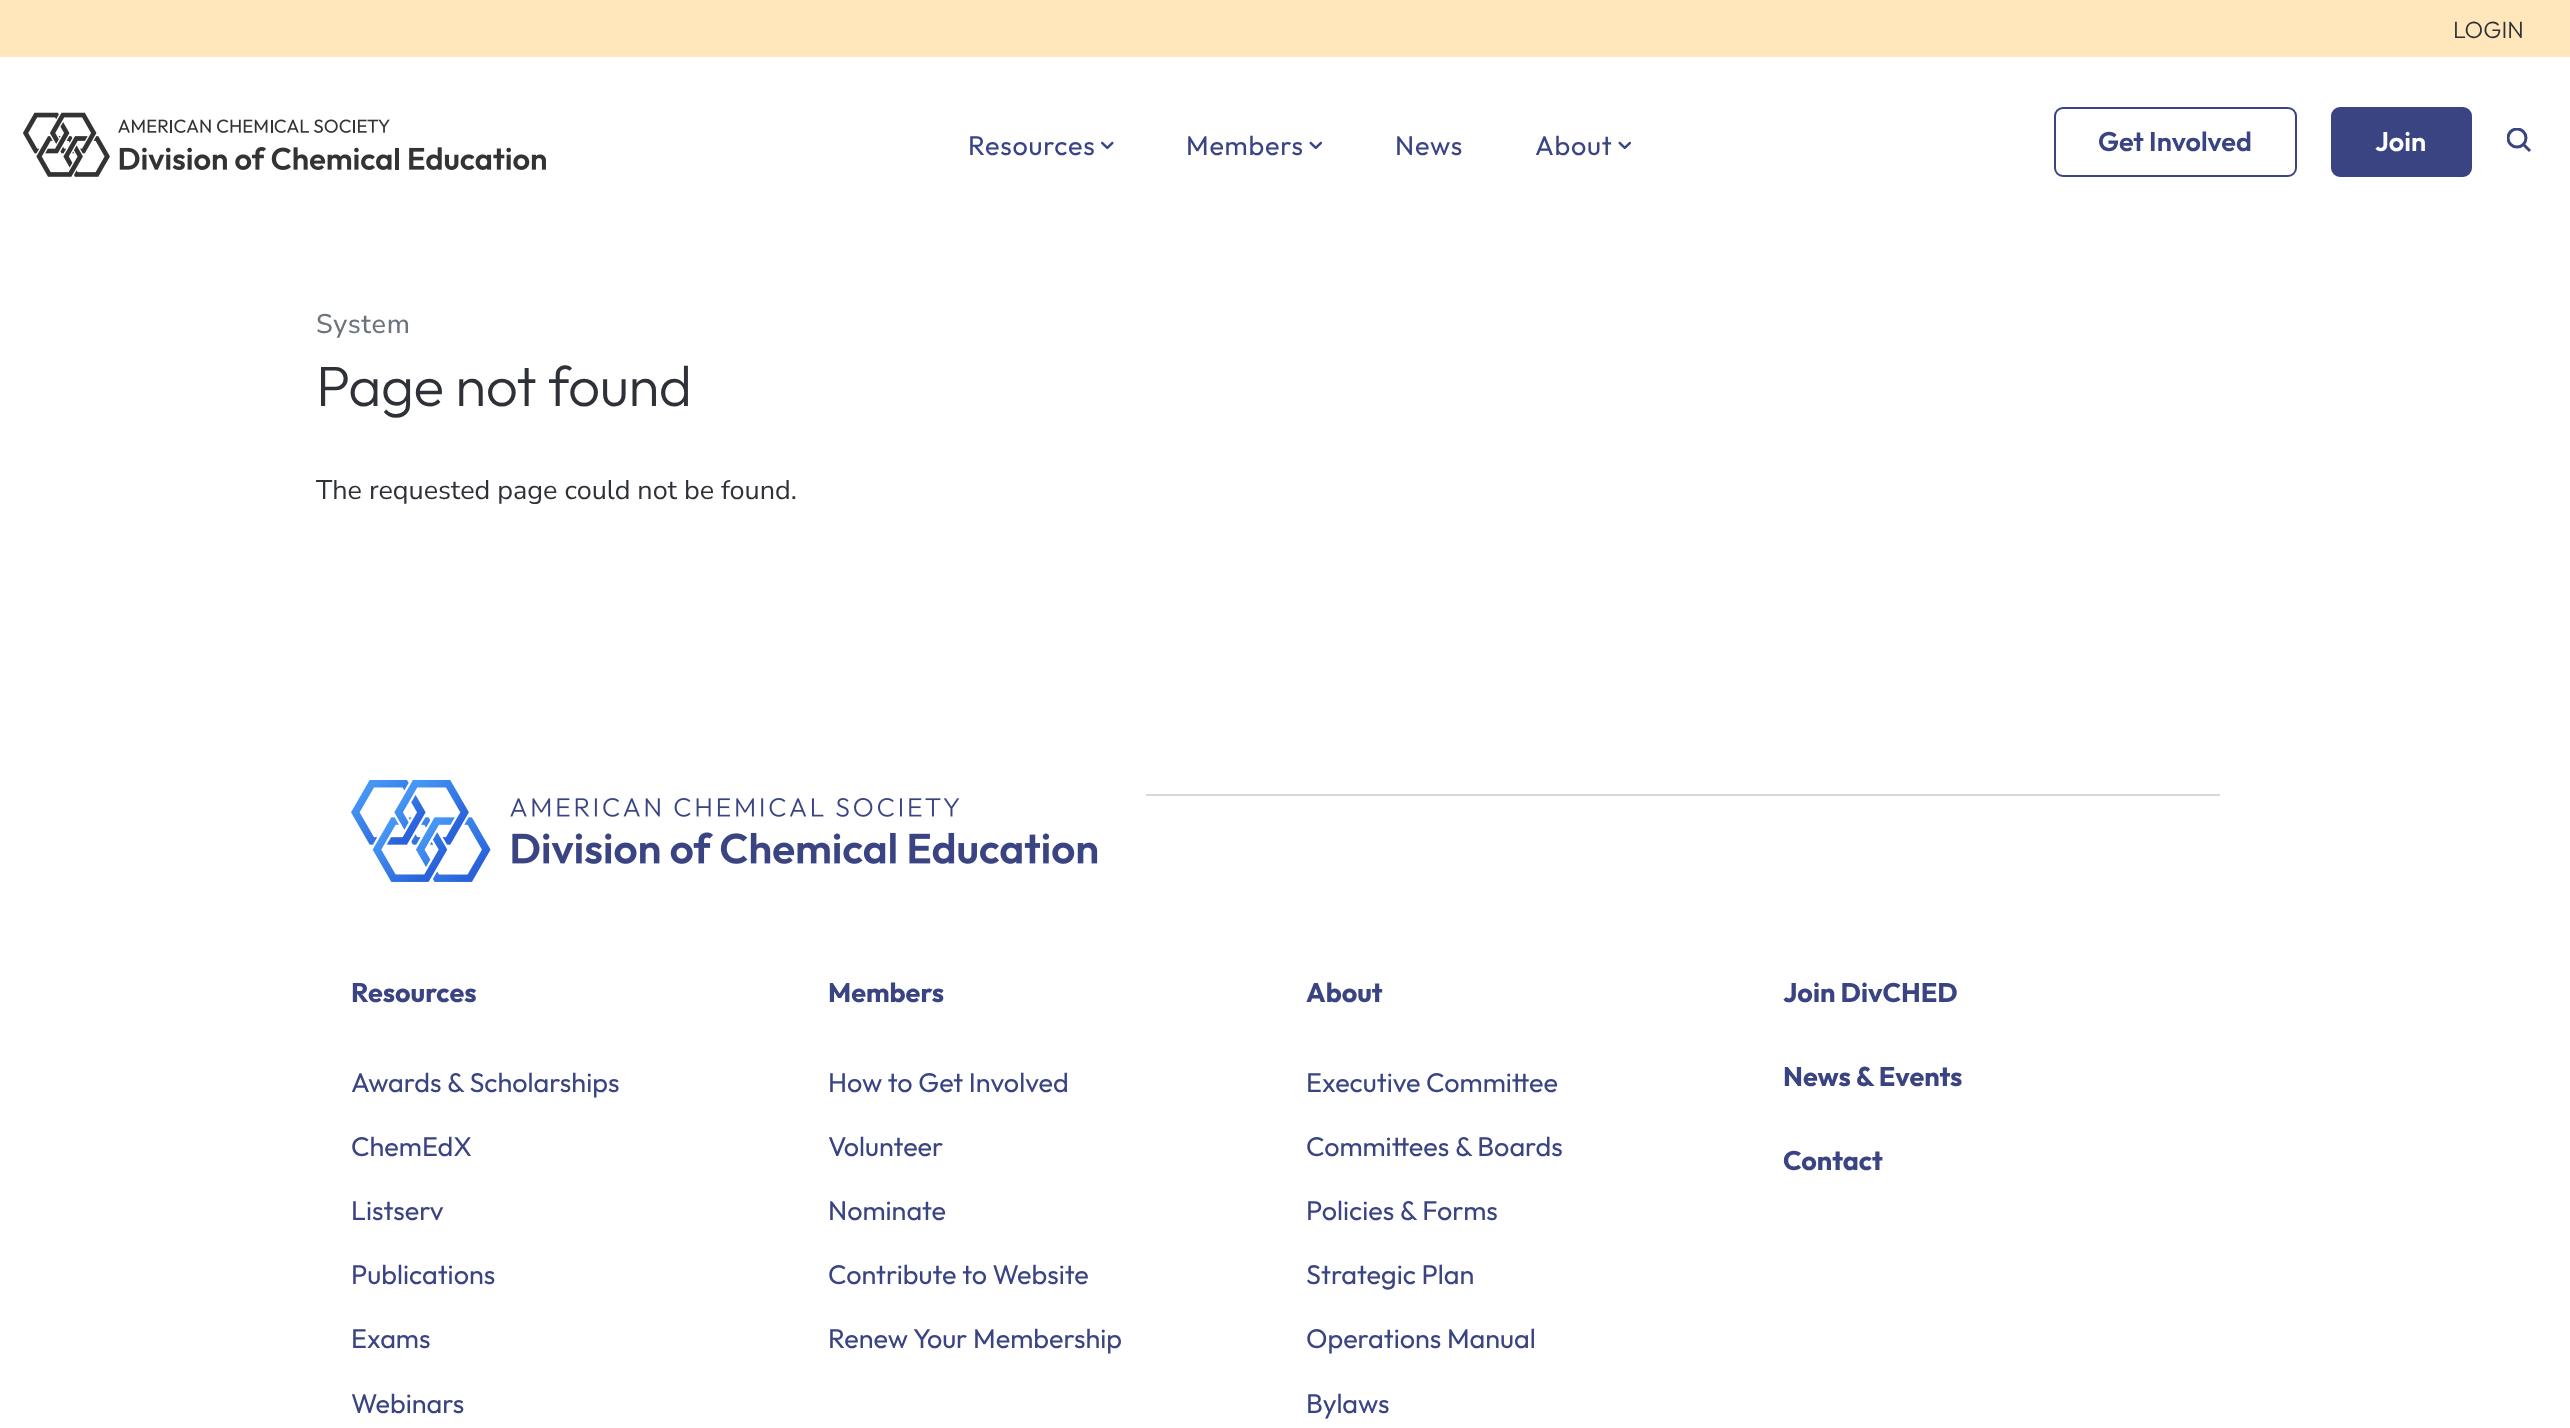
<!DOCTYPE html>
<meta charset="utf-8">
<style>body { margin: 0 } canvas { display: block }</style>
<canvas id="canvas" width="2570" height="1428"></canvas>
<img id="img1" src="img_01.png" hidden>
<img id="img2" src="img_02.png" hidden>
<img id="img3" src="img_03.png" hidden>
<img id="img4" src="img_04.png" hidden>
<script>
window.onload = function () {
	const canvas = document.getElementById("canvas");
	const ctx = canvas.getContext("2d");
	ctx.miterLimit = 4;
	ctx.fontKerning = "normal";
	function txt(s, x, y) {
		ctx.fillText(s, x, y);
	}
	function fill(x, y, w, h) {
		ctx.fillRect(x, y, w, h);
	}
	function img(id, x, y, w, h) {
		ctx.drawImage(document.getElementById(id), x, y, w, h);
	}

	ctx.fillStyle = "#FFFFFF";
	fill(0, 0, 2570, 1428);
	ctx.fillStyle = "#FFE6BB";
	fill(0, 0, 2570, 57);
	img("img1", 23, 112, 523, 65);
	img("img2", 1101, 141, 13, 9);
	img("img3", 1309, 141, 13, 9);
	img("img3", 1618, 141, 13, 9);
	ctx.beginPath();
	ctx.roundRect(2055, 108, 241, 68, 8);
	ctx.strokeStyle = "#3A4483";
	ctx.lineWidth = 2;
	ctx.stroke();
	ctx.fillStyle = "#3A4483";
	ctx.beginPath();
	ctx.roundRect(2332, 108, 139, 68, 8);
	ctx.fill();
	ctx.stroke();
	ctx.beginPath();
	ctx.moveTo(2530, 151);
	ctx.lineTo(2522.5, 143.5);
	ctx.lineWidth = 3;
	ctx.stroke();
	ctx.save();
	ctx.beginPath();
	ctx.rect(2507, 128, 24, 24);
	ctx.clip();
	ctx.beginPath();
	ctx.arc(2517, 138, 9, 0, Math.PI * 2);
	ctx.stroke();
	ctx.restore();
	img("img4", 351, 780, 747, 102);
	ctx.fillStyle = "#D5D7DD";
	fill(1146, 794, 1074, 2);
	ctx.font = "300 23.5px Outfit";
	ctx.fillStyle = "#2E3138";
	txt("LOGIN", 2453, 38);
	ctx.letterSpacing = "0.75px";
	ctx.font = "27px Outfit";
	ctx.fillStyle = "#3A4483";
	txt("Resources", 968, 155);
	txt("Members", 1186, 155);
	txt("News", 1395, 155);
	txt("About", 1535, 155);
	ctx.letterSpacing = "0px";
	ctx.font = "600 27px Outfit";
	txt("Get Involved", 2098, 151);
	ctx.fillStyle = "#FFFFFF";
	txt("Join", 2375, 151);
	ctx.letterSpacing = "0.75px";
	ctx.font = "500 27px Nunito Sans";
	ctx.fillStyle = "#6C757D";
	txt("System", 316, 333);
	ctx.letterSpacing = "-0.5px";
	ctx.font = "300 56.75px Outfit";
	ctx.fillStyle = "#2E3138";
	txt("Page not found", 316, 406);
	ctx.letterSpacing = "0px";
	ctx.font = "27px Nunito Sans";
	txt("The requested page could not be found.", 316, 499);
	ctx.font = "bold 27px Outfit";
	ctx.fillStyle = "#3A4483";
	txt("Resources", 351, 1002);
	ctx.font = "27px Outfit";
	txt("Awards & Scholarships", 351, 1092);
	txt("ChemEdX", 351, 1156);
	txt("Listserv", 351, 1220);
	txt("Publications", 351, 1284);
	txt("Exams", 351, 1348);
	txt("Webinars", 351, 1413);
	ctx.font = "bold 27px Outfit";
	txt("Members", 828, 1002);
	ctx.font = "27px Outfit";
	txt("How to Get Involved", 828, 1092);
	txt("Volunteer", 828, 1156);
	txt("Nominate", 828, 1220);
	txt("Contribute to Website", 828, 1284);
	txt("Renew Your Membership", 828, 1348);
	ctx.font = "bold 27px Outfit";
	txt("About", 1306, 1002);
	ctx.font = "27px Outfit";
	txt("Executive Committee", 1306, 1092);
	txt("Committees & Boards", 1306, 1156);
	txt("Policies & Forms", 1306, 1220);
	txt("Strategic Plan", 1306, 1284);
	txt("Operations Manual", 1306, 1348);
	txt("Bylaws", 1306, 1413);
	ctx.font = "bold 27px Outfit";
	txt("Join DivCHED", 1783, 1002);
	txt("News & Events", 1783, 1086);
	txt("Contact", 1783, 1170);
};
</script>
